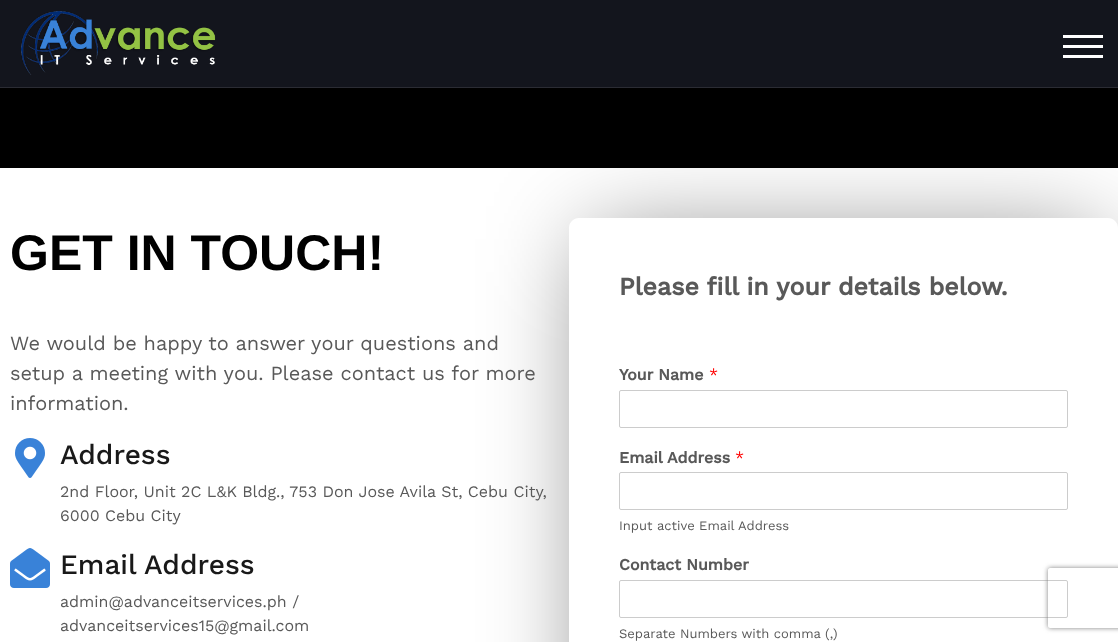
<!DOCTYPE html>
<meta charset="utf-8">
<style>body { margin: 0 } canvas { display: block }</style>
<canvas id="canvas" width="1118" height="642"></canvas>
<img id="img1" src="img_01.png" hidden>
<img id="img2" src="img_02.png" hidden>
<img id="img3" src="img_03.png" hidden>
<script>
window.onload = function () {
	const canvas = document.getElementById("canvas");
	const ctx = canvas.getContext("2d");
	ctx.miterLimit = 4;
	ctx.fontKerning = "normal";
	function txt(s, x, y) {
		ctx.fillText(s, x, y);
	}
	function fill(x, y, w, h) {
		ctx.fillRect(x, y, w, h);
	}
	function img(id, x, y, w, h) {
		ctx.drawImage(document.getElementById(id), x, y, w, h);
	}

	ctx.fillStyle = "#FFFFFF";
	fill(0, 0, 1118, 642);
	ctx.fillStyle = "#13151D";
	fill(0, 0, 1118, 87);
	ctx.fillStyle = "#2B2C34";
	fill(0, 87, 1118, 1);
	img("img1", 21, 11, 195, 64);
	ctx.fillStyle = "#FFFFFF";
	fill(1063, 45, 40, 3);
	fill(1063, 35, 40, 3);
	fill(1063, 55, 40, 3);
	ctx.fillStyle = "#000000";
	fill(0, 88, 1118, 80);
	img("img2", 15, 438, 30, 40);
	img("img3", 10, 548, 40, 40);
	ctx.save();
	ctx.beginPath();
	ctx.moveTo(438, 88);
	ctx.lineTo(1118, 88);
	ctx.lineTo(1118, 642);
	ctx.lineTo(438, 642);
	ctx.closePath();
	ctx.moveTo(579, 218);
	ctx.lineTo(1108, 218);
	ctx.bezierCurveTo(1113.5, 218, 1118, 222.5, 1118, 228);
	ctx.lineTo(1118, 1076);
	ctx.bezierCurveTo(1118, 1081.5, 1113.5, 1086, 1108, 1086);
	ctx.lineTo(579, 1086);
	ctx.bezierCurveTo(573.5, 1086, 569, 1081.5, 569, 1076);
	ctx.lineTo(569, 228);
	ctx.bezierCurveTo(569, 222.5, 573.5, 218, 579, 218);
	ctx.closePath();
	ctx.clip("evenodd");
	ctx.fillStyle = "rgba(0, 0, 0, 0.5)";
	ctx.filter = "blur(50px)";
	ctx.beginPath();
	ctx.rect(589, 239, 509, 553);
	ctx.fill();
	ctx.filter = "none";
	ctx.restore();
	ctx.beginPath();
	ctx.roundRect(619.5, 390.5, 448, 37, 1.5);
	ctx.strokeStyle = "#CCCCCC";
	ctx.stroke();
	ctx.beginPath();
	ctx.roundRect(619.5, 472.5, 448, 37, 1.5);
	ctx.stroke();
	ctx.beginPath();
	ctx.roundRect(619.5, 580.5, 448, 37, 1.5);
	ctx.stroke();
	ctx.save();
	ctx.beginPath();
	ctx.moveTo(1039, 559);
	ctx.lineTo(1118, 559);
	ctx.lineTo(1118, 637);
	ctx.lineTo(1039, 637);
	ctx.closePath();
	ctx.moveTo(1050, 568);
	ctx.lineTo(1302, 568);
	ctx.bezierCurveTo(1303, 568, 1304, 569, 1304, 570);
	ctx.lineTo(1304, 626);
	ctx.bezierCurveTo(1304, 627, 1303, 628, 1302, 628);
	ctx.lineTo(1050, 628);
	ctx.bezierCurveTo(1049, 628, 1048, 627, 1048, 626);
	ctx.lineTo(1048, 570);
	ctx.bezierCurveTo(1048, 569, 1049, 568, 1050, 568);
	ctx.closePath();
	ctx.clip("evenodd");
	ctx.fillStyle = "#808080";
	ctx.filter = "blur(2.5px)";
	ctx.beginPath();
	ctx.roundRect(1048, 568, 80, 60, 2);
	ctx.fill();
	ctx.filter = "none";
	ctx.restore();
	ctx.font = "bold 50px Liberation Sans";
	txt("GET IN TOUCH!", 10, 270);
	ctx.font = "20px Work Sans";
	ctx.fillStyle = "#595959";
	txt("We would be happy to answer your questions and", 10, 350);
	txt("setup a meeting with you. Please contact us for more", 10, 380);
	txt("information.", 10, 410);
	ctx.font = "500 28px Work Sans";
	ctx.fillStyle = "#191919";
	txt("Address", 60, 464);
	ctx.font = "16px Work Sans";
	ctx.fillStyle = "#595959";
	txt("2nd Floor, Unit 2C L&K Bldg., 753 Don Jose Avila St, Cebu City,", 60, 497);
	txt("6000 Cebu City", 60, 521);
	ctx.font = "500 28px Work Sans";
	ctx.fillStyle = "#191919";
	txt("Email Address", 60, 574);
	ctx.font = "16px Work Sans";
	ctx.fillStyle = "#595959";
	txt("admin@advanceitservices.ph /", 60, 607);
	txt("advanceitservices15@gmail.com", 60, 631);
	ctx.font = "bold 25px Work Sans";
	txt("Please fill in your details below.", 619, 295);
	ctx.font = "bold 16px Work Sans";
	txt("Your Name", 619, 380);
	ctx.font = "16px Work Sans";
	ctx.fillStyle = "#FF0000";
	txt("*", 709, 380);
	ctx.font = "bold 16px Work Sans";
	ctx.fillStyle = "#595959";
	txt("Email Address", 619, 463);
	ctx.font = "16px Work Sans";
	ctx.fillStyle = "#FF0000";
	txt("*", 735, 463);
	ctx.font = "13px Work Sans";
	ctx.fillStyle = "#595959";
	txt("Input active Email Address", 619, 530);
	ctx.font = "bold 16px Work Sans";
	txt("Contact Number", 619, 570);
	ctx.font = "13px Work Sans";
	txt("Separate Numbers with comma (,)", 619, 638);
};
</script>
